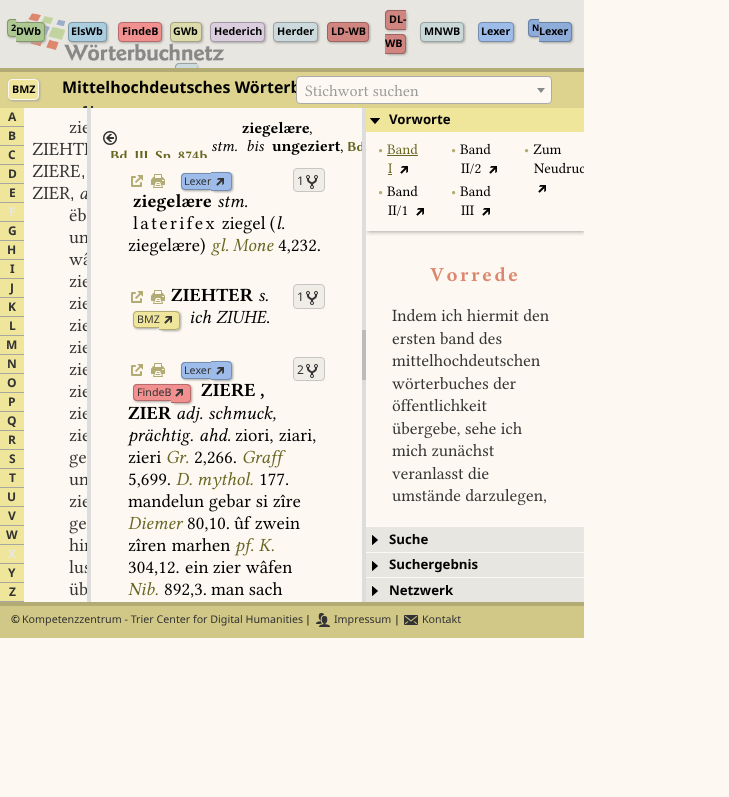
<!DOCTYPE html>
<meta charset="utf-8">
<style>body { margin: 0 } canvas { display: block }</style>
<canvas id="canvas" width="729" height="797"></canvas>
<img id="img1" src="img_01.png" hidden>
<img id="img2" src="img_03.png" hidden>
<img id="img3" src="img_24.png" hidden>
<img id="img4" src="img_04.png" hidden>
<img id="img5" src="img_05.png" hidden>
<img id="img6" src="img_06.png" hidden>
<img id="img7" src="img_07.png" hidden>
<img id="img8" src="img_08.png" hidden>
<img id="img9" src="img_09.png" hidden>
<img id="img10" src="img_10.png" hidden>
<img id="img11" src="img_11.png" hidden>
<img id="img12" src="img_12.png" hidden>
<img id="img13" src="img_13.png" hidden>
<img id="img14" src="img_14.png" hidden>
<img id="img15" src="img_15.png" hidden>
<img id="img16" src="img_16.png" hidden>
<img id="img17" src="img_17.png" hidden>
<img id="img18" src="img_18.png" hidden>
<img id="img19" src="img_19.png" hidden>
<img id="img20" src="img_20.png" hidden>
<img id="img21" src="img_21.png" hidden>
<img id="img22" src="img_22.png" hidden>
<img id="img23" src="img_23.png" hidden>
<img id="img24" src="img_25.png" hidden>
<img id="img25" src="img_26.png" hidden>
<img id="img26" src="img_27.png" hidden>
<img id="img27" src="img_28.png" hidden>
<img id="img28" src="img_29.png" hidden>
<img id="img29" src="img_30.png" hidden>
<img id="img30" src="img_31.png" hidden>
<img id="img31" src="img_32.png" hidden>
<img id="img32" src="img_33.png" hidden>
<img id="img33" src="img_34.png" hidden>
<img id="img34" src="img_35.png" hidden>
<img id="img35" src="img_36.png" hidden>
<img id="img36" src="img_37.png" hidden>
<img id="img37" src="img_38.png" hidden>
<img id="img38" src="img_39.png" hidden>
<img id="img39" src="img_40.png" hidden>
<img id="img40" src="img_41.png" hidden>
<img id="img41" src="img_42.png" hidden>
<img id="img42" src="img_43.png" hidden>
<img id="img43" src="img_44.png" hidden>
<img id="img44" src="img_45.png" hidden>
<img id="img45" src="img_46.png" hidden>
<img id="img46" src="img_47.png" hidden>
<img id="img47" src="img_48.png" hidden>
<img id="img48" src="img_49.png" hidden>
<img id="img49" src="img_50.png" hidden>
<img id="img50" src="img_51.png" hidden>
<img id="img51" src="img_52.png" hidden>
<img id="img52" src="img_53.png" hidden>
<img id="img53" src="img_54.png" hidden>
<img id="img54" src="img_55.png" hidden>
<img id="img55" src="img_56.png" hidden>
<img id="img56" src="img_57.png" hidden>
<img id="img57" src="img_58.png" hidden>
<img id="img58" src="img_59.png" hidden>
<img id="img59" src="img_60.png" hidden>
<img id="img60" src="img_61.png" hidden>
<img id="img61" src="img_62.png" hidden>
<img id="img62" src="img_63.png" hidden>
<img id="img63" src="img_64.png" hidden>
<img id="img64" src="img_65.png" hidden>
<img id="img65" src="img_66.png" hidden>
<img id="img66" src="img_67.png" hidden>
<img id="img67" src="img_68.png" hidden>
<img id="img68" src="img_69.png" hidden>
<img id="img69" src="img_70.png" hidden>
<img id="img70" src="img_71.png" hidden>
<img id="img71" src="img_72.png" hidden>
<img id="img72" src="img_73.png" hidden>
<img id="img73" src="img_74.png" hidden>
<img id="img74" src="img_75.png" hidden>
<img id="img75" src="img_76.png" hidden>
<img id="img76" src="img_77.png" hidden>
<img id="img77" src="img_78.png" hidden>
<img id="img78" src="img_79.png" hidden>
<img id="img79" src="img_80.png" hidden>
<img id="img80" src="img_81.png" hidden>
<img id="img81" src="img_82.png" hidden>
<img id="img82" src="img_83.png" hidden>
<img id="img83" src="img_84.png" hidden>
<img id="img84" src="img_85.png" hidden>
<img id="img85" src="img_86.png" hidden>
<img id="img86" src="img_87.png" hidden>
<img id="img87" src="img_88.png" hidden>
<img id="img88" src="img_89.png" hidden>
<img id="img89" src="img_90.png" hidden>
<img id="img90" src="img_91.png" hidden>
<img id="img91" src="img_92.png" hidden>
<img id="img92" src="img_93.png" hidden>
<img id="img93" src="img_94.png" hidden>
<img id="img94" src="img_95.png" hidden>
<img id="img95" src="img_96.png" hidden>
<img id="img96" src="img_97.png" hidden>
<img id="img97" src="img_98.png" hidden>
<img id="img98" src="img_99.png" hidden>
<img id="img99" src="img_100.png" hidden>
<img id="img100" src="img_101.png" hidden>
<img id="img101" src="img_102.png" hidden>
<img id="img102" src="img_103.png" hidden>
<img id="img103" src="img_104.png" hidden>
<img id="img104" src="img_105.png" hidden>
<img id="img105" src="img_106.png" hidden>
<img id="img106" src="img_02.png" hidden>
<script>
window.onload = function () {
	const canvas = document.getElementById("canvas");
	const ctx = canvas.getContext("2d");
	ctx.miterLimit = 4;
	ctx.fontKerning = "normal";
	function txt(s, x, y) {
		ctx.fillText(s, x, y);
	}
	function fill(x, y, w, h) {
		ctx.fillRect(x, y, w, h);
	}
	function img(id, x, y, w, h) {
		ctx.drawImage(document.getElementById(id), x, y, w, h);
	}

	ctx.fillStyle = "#FDF9F2";
	fill(0, 0, 729, 797);
	ctx.fillStyle = "#B3AB74";
	fill(0, 68, 584, 4);
	ctx.fillStyle = "#E8E6E1";
	fill(0, 0, 584, 68);
	img("img1", 25, 13, 199, 48);
	ctx.fillStyle = "#A8A6A1";
	ctx.filter = "blur(1px)";
	ctx.beginPath();
	ctx.roundRect(8, 20, 9, 18, 4);
	ctx.fill();
	ctx.filter = "none";
	ctx.fillStyle = "#AEC893";
	ctx.beginPath();
	ctx.roundRect(7, 19, 9, 18, [4, 0, 0, 4]);
	ctx.fill();
	ctx.fillStyle = "#82966E";
	ctx.beginPath();
	ctx.moveTo(11, 19);
	ctx.lineTo(16, 19);
	ctx.lineTo(16, 37);
	ctx.bezierCurveTo(7.5, 37, 7, 37, 7, 28);
	ctx.bezierCurveTo(7, 25, 6, 19, 11, 19);
	ctx.closePath();
	ctx.moveTo(11, 20);
	ctx.lineTo(16, 20);
	ctx.lineTo(16, 36);
	ctx.bezierCurveTo(8, 36, 8, 36.5, 8, 28);
	ctx.bezierCurveTo(8, 25.5, 7, 20, 11, 20);
	ctx.closePath();
	ctx.fill("evenodd");
	ctx.fillStyle = "#A8A6A1";
	ctx.filter = "blur(1px)";
	ctx.beginPath();
	ctx.roundRect(17, 23, 29, 20, 4);
	ctx.fill();
	ctx.filter = "none";
	ctx.fillStyle = "#AEC893";
	ctx.beginPath();
	ctx.roundRect(16, 22, 29, 20, [0, 4, 4, 0]);
	ctx.fill();
	ctx.fillStyle = "#82966E";
	ctx.beginPath();
	ctx.moveTo(16, 22);
	ctx.lineTo(41, 22);
	ctx.bezierCurveTo(43, 22, 45, 24, 45, 26);
	ctx.lineTo(45, 38);
	ctx.bezierCurveTo(45, 40, 43, 42, 41, 42);
	ctx.lineTo(16, 42);
	ctx.closePath();
	ctx.moveTo(16, 23);
	ctx.lineTo(37, 23);
	ctx.bezierCurveTo(45.5, 23, 44, 24, 44, 32);
	ctx.bezierCurveTo(44, 40, 45.5, 41, 37, 41);
	ctx.lineTo(16, 41);
	ctx.closePath();
	ctx.fill("evenodd");
	ctx.fillStyle = "#A8A6A1";
	ctx.filter = "blur(1px)";
	ctx.beginPath();
	ctx.roundRect(69, 23, 39, 20, 4);
	ctx.fill();
	ctx.filter = "none";
	ctx.fillStyle = "#AACDDF";
	ctx.beginPath();
	ctx.roundRect(68.5, 22.5, 38, 19, 3.5);
	ctx.fill();
	ctx.strokeStyle = "#7F99A7";
	ctx.stroke();
	ctx.fillStyle = "#A8A6A1";
	ctx.filter = "blur(1px)";
	ctx.beginPath();
	ctx.roundRect(119, 23, 44, 20, 4);
	ctx.fill();
	ctx.filter = "none";
	ctx.fillStyle = "#F28F8F";
	ctx.beginPath();
	ctx.roundRect(118.5, 22.5, 43, 19, 3.5);
	ctx.fill();
	ctx.strokeStyle = "#B56B6B";
	ctx.stroke();
	ctx.fillStyle = "#A8A6A1";
	ctx.filter = "blur(1px)";
	ctx.beginPath();
	ctx.roundRect(171, 23, 32, 20, 4);
	ctx.fill();
	ctx.filter = "none";
	ctx.fillStyle = "#DBDBAC";
	ctx.beginPath();
	ctx.roundRect(170.5, 22.5, 31, 19, 3.5);
	ctx.fill();
	ctx.strokeStyle = "#A4A481";
	ctx.stroke();
	ctx.fillStyle = "#A8A6A1";
	ctx.filter = "blur(1px)";
	ctx.beginPath();
	ctx.roundRect(211, 23, 55, 20, 4);
	ctx.fill();
	ctx.filter = "none";
	ctx.fillStyle = "#DACDDE";
	ctx.beginPath();
	ctx.roundRect(210.5, 22.5, 54, 19, 3.5);
	ctx.fill();
	ctx.strokeStyle = "#A399A6";
	ctx.stroke();
	ctx.fillStyle = "#A8A6A1";
	ctx.filter = "blur(1px)";
	ctx.beginPath();
	ctx.roundRect(274, 23, 45, 20, 4);
	ctx.fill();
	ctx.filter = "none";
	ctx.fillStyle = "#CCDADE";
	ctx.beginPath();
	ctx.roundRect(273.5, 22.5, 44, 19, 3.5);
	ctx.fill();
	ctx.strokeStyle = "#99A3A6";
	ctx.stroke();
	ctx.fillStyle = "#A8A6A1";
	ctx.filter = "blur(1px)";
	ctx.beginPath();
	ctx.roundRect(328, 23, 42, 20, 4);
	ctx.fill();
	ctx.filter = "none";
	ctx.fillStyle = "#D08581";
	ctx.beginPath();
	ctx.roundRect(327.5, 22.5, 41, 19, 3.5);
	ctx.fill();
	ctx.strokeStyle = "#9C6360";
	ctx.stroke();
	ctx.fillStyle = "#A8A6A1";
	ctx.filter = "blur(1px)";
	ctx.beginPath();
	ctx.roundRect(386, 11, 21, 20, 4);
	ctx.fill();
	ctx.filter = "none";
	ctx.fillStyle = "#D08581";
	ctx.beginPath();
	ctx.roundRect(385, 10, 21, 20, [4, 0, 0, 4]);
	ctx.fill();
	ctx.fillStyle = "#9C6360";
	ctx.beginPath();
	ctx.moveTo(389, 10);
	ctx.lineTo(406, 10);
	ctx.lineTo(406, 30);
	ctx.lineTo(389, 30);
	ctx.bezierCurveTo(387, 30, 385, 28, 385, 26);
	ctx.lineTo(385, 14);
	ctx.bezierCurveTo(385, 12, 387, 10, 389, 10);
	ctx.closePath();
	ctx.moveTo(389, 11);
	ctx.lineTo(406, 11);
	ctx.lineTo(406, 29);
	ctx.lineTo(389, 29);
	ctx.bezierCurveTo(387.5, 29, 386, 27.5, 386, 26);
	ctx.lineTo(386, 14);
	ctx.bezierCurveTo(386, 12.5, 387.5, 11, 389, 11);
	ctx.closePath();
	ctx.fill("evenodd");
	ctx.fillStyle = "#A8A6A1";
	ctx.filter = "blur(1px)";
	ctx.beginPath();
	ctx.roundRect(386, 35, 21, 20, 4);
	ctx.fill();
	ctx.filter = "none";
	ctx.fillStyle = "#D08581";
	ctx.beginPath();
	ctx.roundRect(385, 34, 21, 20, [0, 4, 4, 0]);
	ctx.fill();
	ctx.fillStyle = "#9C6360";
	ctx.beginPath();
	ctx.moveTo(385, 34);
	ctx.lineTo(402, 34);
	ctx.bezierCurveTo(404, 34, 406, 36, 406, 38);
	ctx.lineTo(406, 50);
	ctx.bezierCurveTo(406, 52, 404, 54, 402, 54);
	ctx.lineTo(385, 54);
	ctx.closePath();
	ctx.moveTo(385, 35);
	ctx.lineTo(402, 35);
	ctx.bezierCurveTo(403.5, 35, 405, 36.5, 405, 38);
	ctx.lineTo(405, 50);
	ctx.bezierCurveTo(405, 51.5, 403.5, 53, 402, 53);
	ctx.lineTo(385, 53);
	ctx.closePath();
	ctx.fill("evenodd");
	ctx.fillStyle = "#A8A6A1";
	ctx.filter = "blur(1px)";
	ctx.beginPath();
	ctx.roundRect(421, 23, 44, 20, 4);
	ctx.fill();
	ctx.filter = "none";
	ctx.fillStyle = "#CAD8D8";
	ctx.beginPath();
	ctx.roundRect(420.5, 22.5, 43, 19, 3.5);
	ctx.fill();
	ctx.strokeStyle = "#97A2A2";
	ctx.stroke();
	ctx.fillStyle = "#A8A6A1";
	ctx.filter = "blur(1px)";
	ctx.beginPath();
	ctx.roundRect(479, 23, 36, 20, 4);
	ctx.fill();
	ctx.filter = "none";
	ctx.fillStyle = "#9DBCEA";
	ctx.beginPath();
	ctx.roundRect(478.5, 22.5, 35, 19, 3.5);
	ctx.fill();
	ctx.strokeStyle = "#758DAF";
	ctx.stroke();
	ctx.fillStyle = "#A8A6A1";
	ctx.filter = "blur(1px)";
	ctx.beginPath();
	ctx.roundRect(529, 20, 11, 18, 4);
	ctx.fill();
	ctx.filter = "none";
	ctx.fillStyle = "#8DACDA";
	ctx.beginPath();
	ctx.roundRect(528, 19, 11, 18, [4, 0, 0, 4]);
	ctx.fill();
	ctx.fillStyle = "#6981A3";
	ctx.beginPath();
	ctx.moveTo(532, 19);
	ctx.lineTo(539, 19);
	ctx.lineTo(539, 37);
	ctx.lineTo(532, 37);
	ctx.bezierCurveTo(530, 37, 528, 35, 528, 33);
	ctx.lineTo(528, 23);
	ctx.bezierCurveTo(528, 21, 530, 19, 532, 19);
	ctx.closePath();
	ctx.moveTo(532, 20);
	ctx.lineTo(539, 20);
	ctx.lineTo(539, 36);
	ctx.lineTo(532, 36);
	ctx.bezierCurveTo(530.5, 36, 529, 34.5, 529, 33);
	ctx.lineTo(529, 23);
	ctx.bezierCurveTo(529, 21.5, 530.5, 20, 532, 20);
	ctx.closePath();
	ctx.fill("evenodd");
	ctx.fillStyle = "#A8A6A1";
	ctx.filter = "blur(1px)";
	ctx.beginPath();
	ctx.roundRect(540, 23, 33, 20, 4);
	ctx.fill();
	ctx.filter = "none";
	ctx.fillStyle = "#8DACDA";
	ctx.beginPath();
	ctx.roundRect(539, 22, 33, 20, [0, 4, 4, 0]);
	ctx.fill();
	ctx.fillStyle = "#6981A3";
	ctx.beginPath();
	ctx.moveTo(539, 22);
	ctx.lineTo(568, 22);
	ctx.bezierCurveTo(570, 22, 572, 24, 572, 26);
	ctx.lineTo(572, 38);
	ctx.bezierCurveTo(572, 40, 570, 42, 568, 42);
	ctx.lineTo(539, 42);
	ctx.closePath();
	ctx.moveTo(539, 23);
	ctx.lineTo(568, 23);
	ctx.bezierCurveTo(569.5, 23, 571, 24.5, 571, 26);
	ctx.lineTo(571, 38);
	ctx.bezierCurveTo(571, 39.5, 569.5, 41, 568, 41);
	ctx.lineTo(539, 41);
	ctx.closePath();
	ctx.fill("evenodd");
	ctx.save();
	ctx.beginPath();
	ctx.rect(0, 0, 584, 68);
	ctx.clip();
	ctx.fillStyle = "#A8A6A1";
	ctx.filter = "blur(1px)";
	ctx.beginPath();
	ctx.roundRect(176, 64, 22, 20, 4);
	ctx.fill();
	ctx.filter = "none";
	ctx.restore();
	ctx.fillStyle = "#CDDADE";
	ctx.beginPath();
	ctx.roundRect(175, 63, 22, 5, [4, 0, 0, 0]);
	ctx.fill();
	ctx.save();
	ctx.beginPath();
	ctx.rect(0, 0, 584, 68);
	ctx.clip();
	ctx.fillStyle = "#99A3A6";
	ctx.beginPath();
	ctx.moveTo(179, 63);
	ctx.lineTo(197, 63);
	ctx.lineTo(197, 83);
	ctx.lineTo(179, 83);
	ctx.bezierCurveTo(177, 83, 175, 81, 175, 79);
	ctx.lineTo(175, 67);
	ctx.bezierCurveTo(175, 65, 177, 63, 179, 63);
	ctx.closePath();
	ctx.moveTo(179, 64);
	ctx.lineTo(197, 64);
	ctx.lineTo(197, 82);
	ctx.lineTo(179, 82);
	ctx.bezierCurveTo(177.5, 82, 176, 80.5, 176, 79);
	ctx.lineTo(176, 67);
	ctx.bezierCurveTo(176, 65.5, 177.5, 64, 179, 64);
	ctx.closePath();
	ctx.fill("evenodd");
	ctx.restore();
	ctx.fillStyle = "#DDD38F";
	fill(0, 72, 584, 36);
	ctx.fillStyle = "#A8A6A1";
	ctx.filter = "blur(1px)";
	ctx.beginPath();
	ctx.roundRect(9, 80, 31, 21, 4);
	ctx.fill();
	ctx.filter = "none";
	ctx.fillStyle = "#EFE59B";
	ctx.beginPath();
	ctx.roundRect(8.5, 79.5, 30, 20, 3.5);
	ctx.fill();
	ctx.strokeStyle = "#FDF9F2";
	ctx.stroke();
	img("img2", 83, 106, 10, 2);
	ctx.fillStyle = "#DDDDDD";
	fill(87, 108, 4, 494);
	img("img3", 348, 141, 14, 11);
	ctx.fillStyle = "#FFFFFF";
	fill(366, 524, 218, 3);
	ctx.fillStyle = "#FDF9F2";
	ctx.beginPath();
	ctx.roundRect(366, 132, 218, 395, [0, 0, 3, 3]);
	ctx.fill();
	ctx.save();
	ctx.beginPath();
	ctx.moveTo(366, 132);
	ctx.lineTo(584, 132);
	ctx.lineTo(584, 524);
	ctx.bezierCurveTo(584, 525.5, 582.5, 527, 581, 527);
	ctx.lineTo(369, 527);
	ctx.bezierCurveTo(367.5, 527, 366, 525.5, 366, 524);
	ctx.closePath();
	ctx.clip();
	ctx.beginPath();
	ctx.rect(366, 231, 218, 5);
	ctx.clip();
	ctx.fillStyle = "#A8A6A1";
	ctx.filter = "blur(2px)";
	ctx.beginPath();
	ctx.rect(367, 133, 218, 99);
	ctx.fill();
	ctx.filter = "none";
	ctx.restore();
	ctx.fillStyle = "#DDDDDD";
	fill(362, 108, 4, 494);
	ctx.fillStyle = "#BBBBBB";
	fill(362, 330, 4, 50);
	ctx.fillStyle = "#EFE59B";
	fill(0, 108, 24, 493);
	ctx.fillStyle = "#A8A6A1";
	fill(0, 126, 24, 1);
	fill(0, 145, 24, 1);
	fill(0, 164, 24, 1);
	fill(0, 183, 24, 1);
	fill(0, 202, 24, 1);
	fill(0, 221, 24, 1);
	fill(0, 240, 24, 1);
	fill(0, 259, 24, 1);
	fill(0, 278, 24, 1);
	fill(0, 297, 24, 1);
	fill(0, 316, 24, 1);
	fill(0, 335, 24, 1);
	fill(0, 354, 24, 1);
	fill(0, 373, 24, 1);
	fill(0, 392, 24, 1);
	fill(0, 411, 24, 1);
	fill(0, 430, 24, 1);
	fill(0, 449, 24, 1);
	fill(0, 468, 24, 1);
	fill(0, 487, 24, 1);
	fill(0, 506, 24, 1);
	fill(0, 525, 24, 1);
	fill(0, 544, 24, 1);
	fill(0, 563, 24, 1);
	fill(0, 582, 24, 1);
	fill(0, 601, 24, 1);
	img("img4", 69, 121, 18, 13);
	img("img5", 32, 142, 55, 13);
	img("img6", 32, 164, 48, 14);
	img("img7", 32, 186, 39, 14);
	img("img8", 80, 190, 7, 10);
	img("img9", 69, 208, 17, 14);
	img("img10", 69, 234, 18, 10);
	img("img11", 69, 252, 18, 14);
	img("img4", 69, 275, 18, 13);
	img("img4", 69, 297, 18, 13);
	img("img4", 69, 319, 18, 13);
	img("img4", 69, 341, 18, 13);
	img("img4", 69, 363, 18, 13);
	img("img4", 69, 385, 18, 13);
	img("img4", 69, 407, 18, 13);
	img("img4", 69, 429, 18, 13);
	img("img12", 69, 454, 17, 14);
	img("img10", 69, 476, 18, 10);
	img("img4", 69, 495, 18, 13);
	img("img12", 69, 520, 17, 14);
	img("img13", 69, 538, 18, 13);
	img("img14", 69, 560, 18, 14);
	img("img15", 69, 582, 18, 14);
	img("img16", 103, 131, 14, 14);
	img("img17", 111, 150, 96, 8);
	img("img18", 242, 121, 67, 16);
	img("img19", 309, 131, 3, 4);
	img("img20", 212, 142, 25, 10);
	img("img21", 247, 139, 18, 13);
	img("img22", 272, 140, 69, 15);
	img("img19", 340, 149, 3, 4);
	img("img23", 298, 157, 2, 1);
	img("img24", 131, 175, 12, 12);
	img("img25", 151, 174, 14, 14);
	ctx.filter = "blur(1px)";
	ctx.beginPath();
	ctx.roundRect(182, 174, 30, 17, 4);
	ctx.fill();
	ctx.filter = "none";
	ctx.fillStyle = "#9DBCEA";
	ctx.beginPath();
	ctx.roundRect(181, 173, 30, 17, [4, 0, 0, 4]);
	ctx.fill();
	ctx.fillStyle = "#758DAF";
	ctx.beginPath();
	ctx.moveTo(185, 173);
	ctx.lineTo(211, 173);
	ctx.lineTo(211, 190);
	ctx.lineTo(185, 190);
	ctx.bezierCurveTo(183, 190, 181, 188, 181, 186);
	ctx.lineTo(181, 177);
	ctx.bezierCurveTo(181, 175, 183, 173, 185, 173);
	ctx.closePath();
	ctx.moveTo(185, 174);
	ctx.lineTo(211, 174);
	ctx.lineTo(211, 189);
	ctx.lineTo(185, 189);
	ctx.bezierCurveTo(183.5, 189, 182, 187.5, 182, 186);
	ctx.lineTo(182, 177);
	ctx.bezierCurveTo(182, 175.5, 183.5, 174, 185, 174);
	ctx.closePath();
	ctx.fill("evenodd");
	ctx.fillStyle = "#A8A6A1";
	ctx.filter = "blur(1px)";
	ctx.beginPath();
	ctx.roundRect(212, 173, 21, 19, 4);
	ctx.fill();
	ctx.filter = "none";
	ctx.fillStyle = "#9DBCEA";
	ctx.beginPath();
	ctx.roundRect(211, 172, 21, 19, [0, 4, 4, 0]);
	ctx.fill();
	ctx.fillStyle = "#758DAF";
	ctx.beginPath();
	ctx.moveTo(211, 172);
	ctx.lineTo(225, 172);
	ctx.bezierCurveTo(233, 172, 232, 174.5, 232, 181.5);
	ctx.bezierCurveTo(232, 188.5, 233, 191, 225, 191);
	ctx.lineTo(211, 191);
	ctx.closePath();
	ctx.moveTo(211, 173);
	ctx.lineTo(225, 173);
	ctx.bezierCurveTo(232.5, 173, 231, 175, 231, 181.5);
	ctx.bezierCurveTo(231, 188, 232.5, 190, 225, 190);
	ctx.lineTo(211, 190);
	ctx.closePath();
	ctx.fill("evenodd");
	img("img26", 216, 178, 8, 8);
	ctx.fillStyle = "#F0EDE6";
	ctx.beginPath();
	ctx.roundRect(293.5, 168.5, 31, 23, 3.5);
	ctx.fill();
	ctx.strokeStyle = "#C8C6C1";
	ctx.stroke();
	img("img27", 306, 175, 12, 14);
	img("img28", 133, 194, 79, 18);
	img("img29", 218, 196, 30, 12);
	img("img30", 133, 216, 82, 14);
	img("img31", 222, 216, 44, 18);
	img("img32", 270, 215, 5, 18);
	img("img33", 277, 216, 8, 14);
	img("img34", 128, 237, 77, 19);
	img("img35", 211, 238, 17, 18);
	img("img36", 233, 238, 41, 14);
	img("img37", 278, 239, 42, 15);
	img("img24", 131, 291, 12, 12);
	img("img25", 151, 290, 14, 14);
	img("img38", 171, 288, 82, 14);
	img("img39", 259, 292, 9, 10);
	ctx.beginPath();
	ctx.roundRect(293.5, 284.5, 31, 24, 3.5);
	ctx.fill();
	ctx.stroke();
	img("img27", 306, 291, 12, 14);
	ctx.fillStyle = "#A8A6A1";
	ctx.filter = "blur(1px)";
	ctx.beginPath();
	ctx.roundRect(134, 312, 26, 17, 4);
	ctx.fill();
	ctx.filter = "none";
	ctx.fillStyle = "#EFE59B";
	ctx.beginPath();
	ctx.roundRect(133, 311, 26, 17, [4, 0, 0, 4]);
	ctx.fill();
	ctx.fillStyle = "#B3AB74";
	ctx.beginPath();
	ctx.moveTo(137, 311);
	ctx.lineTo(159, 311);
	ctx.lineTo(159, 328);
	ctx.lineTo(137, 328);
	ctx.bezierCurveTo(135, 328, 133, 326, 133, 324);
	ctx.lineTo(133, 315);
	ctx.bezierCurveTo(133, 313, 135, 311, 137, 311);
	ctx.closePath();
	ctx.moveTo(137, 312);
	ctx.lineTo(159, 312);
	ctx.lineTo(159, 327);
	ctx.lineTo(137, 327);
	ctx.bezierCurveTo(135.5, 327, 134, 325.5, 134, 324);
	ctx.lineTo(134, 315);
	ctx.bezierCurveTo(134, 313.5, 135.5, 312, 137, 312);
	ctx.closePath();
	ctx.fill("evenodd");
	ctx.fillStyle = "#A8A6A1";
	ctx.filter = "blur(1px)";
	ctx.beginPath();
	ctx.roundRect(160, 312, 21, 19, 4);
	ctx.fill();
	ctx.filter = "none";
	ctx.fillStyle = "#EFE59B";
	ctx.beginPath();
	ctx.roundRect(159, 311, 21, 19, [0, 4, 4, 0]);
	ctx.fill();
	ctx.fillStyle = "#B3AB74";
	ctx.beginPath();
	ctx.moveTo(159, 311);
	ctx.lineTo(173, 311);
	ctx.bezierCurveTo(181, 311, 180, 313.5, 180, 320.5);
	ctx.bezierCurveTo(180, 327.5, 181, 330, 173, 330);
	ctx.lineTo(159, 330);
	ctx.closePath();
	ctx.moveTo(159, 312);
	ctx.lineTo(173, 312);
	ctx.bezierCurveTo(180.5, 312, 179, 314, 179, 320.5);
	ctx.bezierCurveTo(179, 327, 180.5, 329, 173, 329);
	ctx.lineTo(159, 329);
	ctx.closePath();
	ctx.fill("evenodd");
	img("img40", 164, 316, 8, 8);
	img("img41", 191, 310, 21, 14);
	img("img42", 216, 310, 51, 14);
	img("img43", 267, 321, 2, 3);
	img("img24", 131, 364, 12, 12);
	img("img25", 151, 363, 14, 14);
	ctx.fillStyle = "#A8A6A1";
	ctx.filter = "blur(1px)";
	ctx.beginPath();
	ctx.roundRect(182, 363, 30, 17, 4);
	ctx.fill();
	ctx.filter = "none";
	ctx.fillStyle = "#9DBCEA";
	ctx.beginPath();
	ctx.roundRect(181, 362, 30, 17, [4, 0, 0, 4]);
	ctx.fill();
	ctx.fillStyle = "#758DAF";
	ctx.beginPath();
	ctx.moveTo(185, 362);
	ctx.lineTo(211, 362);
	ctx.lineTo(211, 379);
	ctx.lineTo(185, 379);
	ctx.bezierCurveTo(183, 379, 181, 377, 181, 375);
	ctx.lineTo(181, 366);
	ctx.bezierCurveTo(181, 364, 183, 362, 185, 362);
	ctx.closePath();
	ctx.moveTo(185, 363);
	ctx.lineTo(211, 363);
	ctx.lineTo(211, 378);
	ctx.lineTo(185, 378);
	ctx.bezierCurveTo(183.5, 378, 182, 376.5, 182, 375);
	ctx.lineTo(182, 366);
	ctx.bezierCurveTo(182, 364.5, 183.5, 363, 185, 363);
	ctx.closePath();
	ctx.fill("evenodd");
	ctx.fillStyle = "#A8A6A1";
	ctx.filter = "blur(1px)";
	ctx.beginPath();
	ctx.roundRect(212, 362, 21, 19, 4);
	ctx.fill();
	ctx.filter = "none";
	ctx.fillStyle = "#9DBCEA";
	ctx.beginPath();
	ctx.roundRect(211, 361, 21, 19, [0, 4, 4, 0]);
	ctx.fill();
	ctx.fillStyle = "#758DAF";
	ctx.beginPath();
	ctx.moveTo(211, 361);
	ctx.lineTo(225, 361);
	ctx.bezierCurveTo(233, 361, 232, 363.5, 232, 370.5);
	ctx.bezierCurveTo(232, 377.5, 233, 380, 225, 380);
	ctx.lineTo(211, 380);
	ctx.closePath();
	ctx.moveTo(211, 362);
	ctx.lineTo(225, 362);
	ctx.bezierCurveTo(232.5, 362, 231, 364, 231, 370.5);
	ctx.bezierCurveTo(231, 377, 232.5, 379, 225, 379);
	ctx.lineTo(211, 379);
	ctx.closePath();
	ctx.fill("evenodd");
	img("img26", 216, 367, 8, 8);
	ctx.fillStyle = "#F0EDE6";
	ctx.beginPath();
	ctx.roundRect(293.5, 357.5, 31, 23, 3.5);
	ctx.fill();
	ctx.stroke();
	img("img27", 306, 364, 12, 14);
	ctx.fillStyle = "#A8A6A1";
	ctx.filter = "blur(1px)";
	ctx.beginPath();
	ctx.roundRect(134, 385, 38, 17, 4);
	ctx.fill();
	ctx.filter = "none";
	ctx.fillStyle = "#F28F8F";
	ctx.beginPath();
	ctx.roundRect(133, 384, 38, 17, [4, 0, 0, 4]);
	ctx.fill();
	ctx.fillStyle = "#B56B6B";
	ctx.beginPath();
	ctx.moveTo(137, 384);
	ctx.lineTo(171, 384);
	ctx.lineTo(171, 401);
	ctx.lineTo(137, 401);
	ctx.bezierCurveTo(135, 401, 133, 399, 133, 397);
	ctx.lineTo(133, 388);
	ctx.bezierCurveTo(133, 386, 135, 384, 137, 384);
	ctx.closePath();
	ctx.moveTo(137, 385);
	ctx.lineTo(171, 385);
	ctx.lineTo(171, 400);
	ctx.lineTo(137, 400);
	ctx.bezierCurveTo(135.5, 400, 134, 398.5, 134, 397);
	ctx.lineTo(134, 388);
	ctx.bezierCurveTo(134, 386.5, 135.5, 385, 137, 385);
	ctx.closePath();
	ctx.fill("evenodd");
	ctx.fillStyle = "#A8A6A1";
	ctx.filter = "blur(1px)";
	ctx.beginPath();
	ctx.roundRect(172, 385, 20, 19, 4);
	ctx.fill();
	ctx.filter = "none";
	ctx.fillStyle = "#F28F8F";
	ctx.beginPath();
	ctx.roundRect(171, 384, 20, 19, [0, 4, 4, 0]);
	ctx.fill();
	ctx.fillStyle = "#B56B6B";
	ctx.beginPath();
	ctx.moveTo(171, 384);
	ctx.lineTo(184.5, 384);
	ctx.bezierCurveTo(192, 384, 191, 386.5, 191, 393.5);
	ctx.bezierCurveTo(191, 400.5, 192, 403, 184.5, 403);
	ctx.lineTo(171, 403);
	ctx.closePath();
	ctx.moveTo(171, 385);
	ctx.lineTo(184.5, 385);
	ctx.bezierCurveTo(191.5, 385, 190, 387, 190, 393.5);
	ctx.bezierCurveTo(190, 400, 191.5, 402, 184.5, 402);
	ctx.lineTo(171, 402);
	ctx.closePath();
	ctx.fill("evenodd");
	img("img44", 175, 389, 8, 8);
	img("img45", 201, 383, 54, 14);
	img("img46", 260, 393, 4, 7);
	img("img47", 128, 406, 44, 14);
	img("img48", 177, 406, 26, 17);
	img("img49", 209, 406, 67, 16);
	img("img50", 127, 428, 66, 18);
	img("img51", 200, 428, 30, 14);
	img("img52", 235, 429, 38, 15);
	img("img53", 279, 429, 37, 15);
	img("img54", 128, 451, 33, 13);
	img("img55", 167, 450, 22, 14);
	img("img56", 195, 451, 41, 15);
	img("img57", 243, 450, 43, 18);
	img("img58", 129, 473, 41, 15);
	img("img59", 176, 472, 16, 14);
	img("img60", 198, 472, 55, 18);
	img("img61", 260, 473, 29, 13);
	img("img62", 128, 494, 76, 14);
	img("img63", 209, 494, 42, 18);
	img("img64", 256, 495, 12, 13);
	img("img65", 273, 494, 28, 14);
	img("img66", 128, 516, 56, 14);
	img("img67", 187, 517, 42, 15);
	img("img68", 234, 516, 18, 14);
	img("img69", 255, 517, 45, 13);
	img("img70", 128, 538, 39, 14);
	img("img71", 172, 538, 59, 14);
	img("img72", 234, 538, 20, 18);
	img("img73", 259, 538, 15, 14);
	img("img74", 128, 561, 51, 15);
	img("img75", 185, 561, 24, 13);
	img("img76", 213, 561, 28, 13);
	img("img77", 245, 560, 48, 14);
	img("img78", 128, 582, 30, 14);
	img("img79", 164, 583, 42, 15);
	img("img80", 211, 586, 34, 10);
	img("img81", 249, 582, 34, 14);
	ctx.fillStyle = "#EFE59B";
	fill(366, 108, 218, 24);
	img("img82", 370, 118, 10, 6);
	img("img83", 378, 149, 5, 4);
	img("img84", 387, 143, 31, 12);
	ctx.fillStyle = "#666622";
	fill(387, 155, 31, 1);
	img("img85", 388, 163, 5, 10);
	img("img86", 400, 166, 8, 8);
	fill(388, 174, 4, 1);
	img("img83", 451, 149, 5, 4);
	img("img87", 460, 143, 31, 12);
	img("img88", 461, 163, 20, 11);
	img("img86", 489, 166, 8, 8);
	img("img83", 524, 149, 5, 4);
	img("img89", 533, 144, 29, 11);
	img("img90", 534, 162, 50, 12);
	img("img86", 538, 185, 8, 8);
	img("img83", 378, 191, 5, 4);
	img("img87", 387, 185, 31, 12);
	img("img91", 388, 205, 19, 11);
	img("img86", 416, 208, 8, 8);
	img("img83", 451, 191, 5, 4);
	img("img87", 460, 185, 31, 12);
	img("img92", 461, 205, 13, 10);
	img("img86", 482, 208, 8, 8);
	img("img93", 430, 267, 87, 15);
	img("img94", 392, 308, 157, 14);
	img("img95", 392, 331, 110, 14);
	img("img96", 392, 353, 148, 14);
	img("img97", 392, 376, 124, 14);
	img("img98", 392, 398, 95, 14);
	img("img99", 392, 421, 130, 18);
	img("img100", 392, 443, 102, 14);
	img("img101", 392, 467, 97, 13);
	img("img102", 392, 488, 154, 18);
	ctx.fillStyle = "#E8E6E1";
	fill(366, 527, 218, 25);
	img("img103", 372, 535, 6, 10);
	fill(366, 553, 218, 24);
	img("img103", 372, 561, 6, 10);
	fill(366, 578, 218, 24);
	img("img103", 372, 586, 6, 10);
	ctx.fillStyle = "#B3AB74";
	fill(0, 602, 584, 4);
	ctx.fillStyle = "#D1C887";
	fill(0, 606, 584, 32);
	img("img104", 316, 613, 14, 14);
	img("img105", 404, 615, 14, 10);
	ctx.font = "bold 9px Noto Sans";
	ctx.fillStyle = "#000000";
	txt("2", 11, 31);
	ctx.font = "bold 10.7px Noto Sans";
	txt("DWb", 16, 35);
	txt("ElsWb", 71, 35);
	txt("FindeB", 122, 35);
	txt("GWb", 173, 35);
	txt("Hederich", 214, 35);
	txt("Herder", 277, 35);
	txt("LD-WB", 331, 35);
	txt("DL-", 389, 23);
	txt("WB", 385, 47);
	txt("MNWB", 424, 35);
	txt("Lexer", 481, 35);
	ctx.font = "bold 9px Noto Sans";
	txt("N", 532, 31);
	ctx.font = "bold 10.7px Noto Sans";
	txt("Lexer", 539, 35);
	txt("BMZ", 12, 93);
	ctx.font = "bold 16px Noto Sans";
	txt("Mittelhochdeutsches Wörterb", 62, 93);
	ctx.fillStyle = "#FDF9F2";
	ctx.beginPath();
	ctx.roundRect(296.5, 76.5, 255, 27, 3.5);
	ctx.fill();
	ctx.strokeStyle = "#AAAAAA";
	ctx.stroke();
	img("img106", 305, 84, 114, 13);
	ctx.fillStyle = "#888888";
	ctx.beginPath();
	ctx.moveTo(537, 88);
	ctx.lineTo(545, 88);
	ctx.lineTo(541, 93);
	ctx.closePath();
	ctx.fill();
	ctx.font = "bold 12px Noto Sans";
	ctx.fillStyle = "#333333";
	txt("A", 8, 121);
	txt("B", 8, 140);
	txt("C", 8, 159);
	txt("D", 8, 178);
	txt("E", 9, 197);
	ctx.fillStyle = "#E8E6E1";
	txt("F", 9, 216);
	ctx.fillStyle = "#333333";
	txt("G", 8, 235);
	txt("H", 7, 254);
	txt("I", 10, 273);
	txt("J", 10, 292);
	txt("K", 8, 311);
	txt("L", 9, 330);
	txt("M", 6, 349);
	txt("N", 7, 368);
	txt("O", 7, 387);
	txt("P", 8, 406);
	txt("Q", 7, 425);
	txt("R", 8, 444);
	txt("S", 9, 463);
	txt("T", 9, 482);
	txt("U", 7, 501);
	txt("V", 8, 520);
	txt("W", 6, 539);
	ctx.fillStyle = "#E8E6E1";
	txt("X", 8, 558);
	ctx.fillStyle = "#333333";
	txt("Y", 8, 577);
	txt("Z", 9, 596);
	ctx.font = "16px Liberation Sans";
	txt(",", 81, 177);
	txt(",", 70, 199);
	ctx.font = "10.7px Noto Sans";
	txt("Lexer", 184, 185);
	ctx.font = "12px Noto Sans";
	txt("1", 297, 185);
	txt("1", 297, 301);
	ctx.font = "10.7px Noto Sans";
	txt("BMZ", 137, 323);
	txt("Lexer", 184, 374);
	ctx.font = "12px Noto Sans";
	txt("2", 297, 374);
	ctx.font = "10.7px Noto Sans";
	txt("FindeB", 137, 396);
	ctx.font = "bold 13.25px Noto Sans";
	ctx.fillStyle = "#000000";
	txt("Vorworte", 389, 124);
	txt("Suche", 389, 544);
	txt("Suchergebnis", 389, 569);
	txt("Netzwerk", 389, 595);
	ctx.font = "10.7px Noto Sans";
	txt("©", 11, 623);
	ctx.fillStyle = "#333333";
	txt("Kompetenzzentrum - Trier Center for Digital Humanities", 22, 623);
	ctx.fillStyle = "#000000";
	txt("|", 305, 623);
	ctx.fillStyle = "#333333";
	txt("Impressum", 334, 623);
	ctx.fillStyle = "#000000";
	txt("|", 394, 623);
	ctx.fillStyle = "#333333";
	txt("Kontakt", 422, 623);
};
</script>
